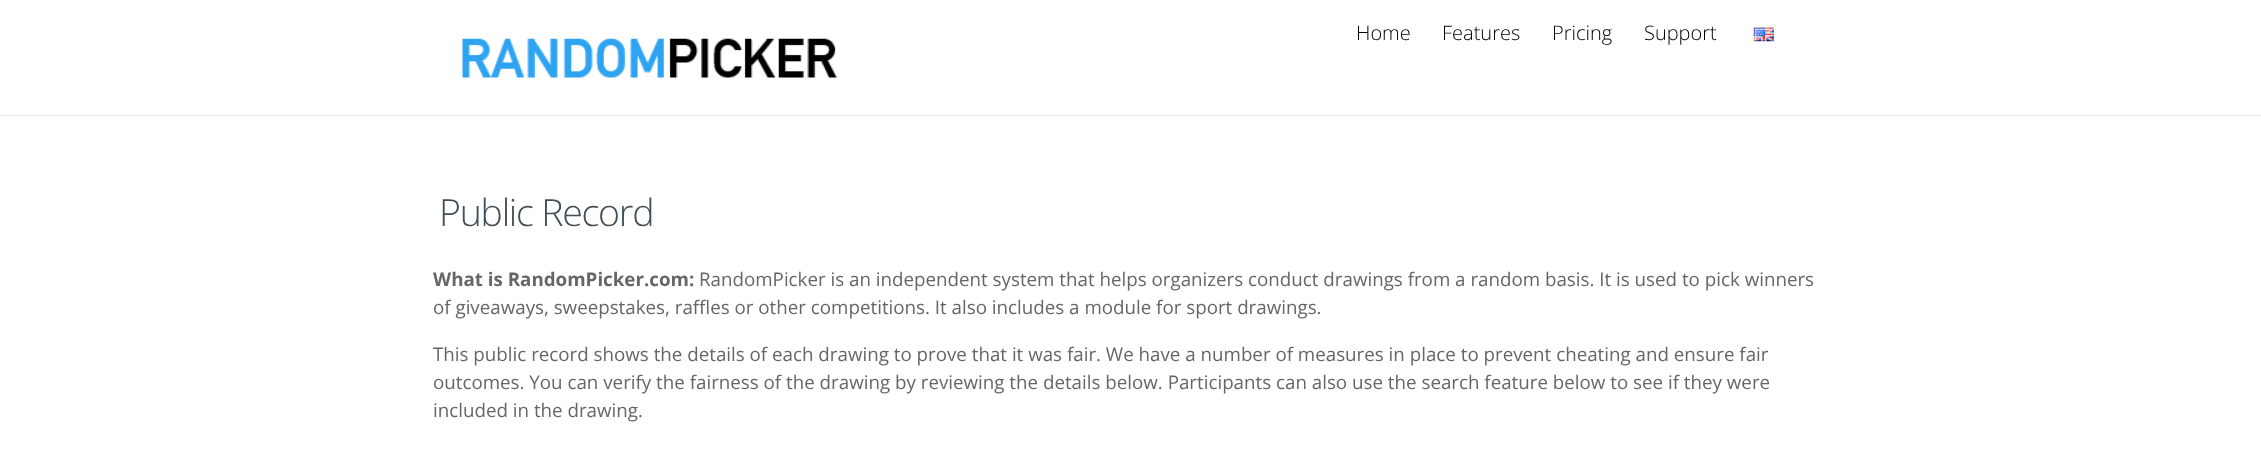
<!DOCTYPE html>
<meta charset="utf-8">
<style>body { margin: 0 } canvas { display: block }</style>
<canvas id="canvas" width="2261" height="449"></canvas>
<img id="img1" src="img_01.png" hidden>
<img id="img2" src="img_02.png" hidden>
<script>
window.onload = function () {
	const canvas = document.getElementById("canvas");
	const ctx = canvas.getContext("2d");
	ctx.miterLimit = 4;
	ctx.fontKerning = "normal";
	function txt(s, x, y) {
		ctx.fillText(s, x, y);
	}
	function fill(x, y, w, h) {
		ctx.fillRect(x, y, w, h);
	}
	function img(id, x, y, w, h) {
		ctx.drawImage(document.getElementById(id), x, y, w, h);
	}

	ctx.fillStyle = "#FFFFFF";
	fill(0, 0, 2261, 449);
	img("img1", 1753, 27, 21, 15);
	img("img2", 462, 38, 376, 40);
	ctx.fillStyle = "#E6E6E6";
	fill(0, 115, 2261, 1);
	ctx.font = "300 20px Open Sans";
	ctx.fillStyle = "#000000";
	txt("Home", 1356, 40);
	txt("Features", 1442, 40);
	txt("Pricing", 1552, 40);
	txt("Support", 1644, 40);
	ctx.letterSpacing = "-1.25px";
	ctx.font = "300 37.5px Open Sans";
	ctx.fillStyle = "#424F59";
	txt("Public Record", 439, 226);
	ctx.letterSpacing = "0px";
	ctx.font = "bold 18.75px Open Sans";
	ctx.fillStyle = "#666666";
	txt("What is RandomPicker.com:", 433, 286);
	ctx.font = "18.75px Open Sans";
	txt("RandomPicker is an independent system that helps organizers conduct drawings from a random basis. It is used to pick winners", 699, 286);
	txt("of giveaways, sweepstakes, raffles or other competitions. It also includes a module for sport drawings.", 433, 314);
	txt("This public record shows the details of each drawing to prove that it was fair. We have a number of measures in place to prevent cheating and ensure fair", 433, 361);
	txt("outcomes. You can verify the fairness of the drawing by reviewing the details below. Participants can also use the search feature below to see if they were", 433, 389);
	txt("included in the drawing.", 433, 417);
};
</script>
